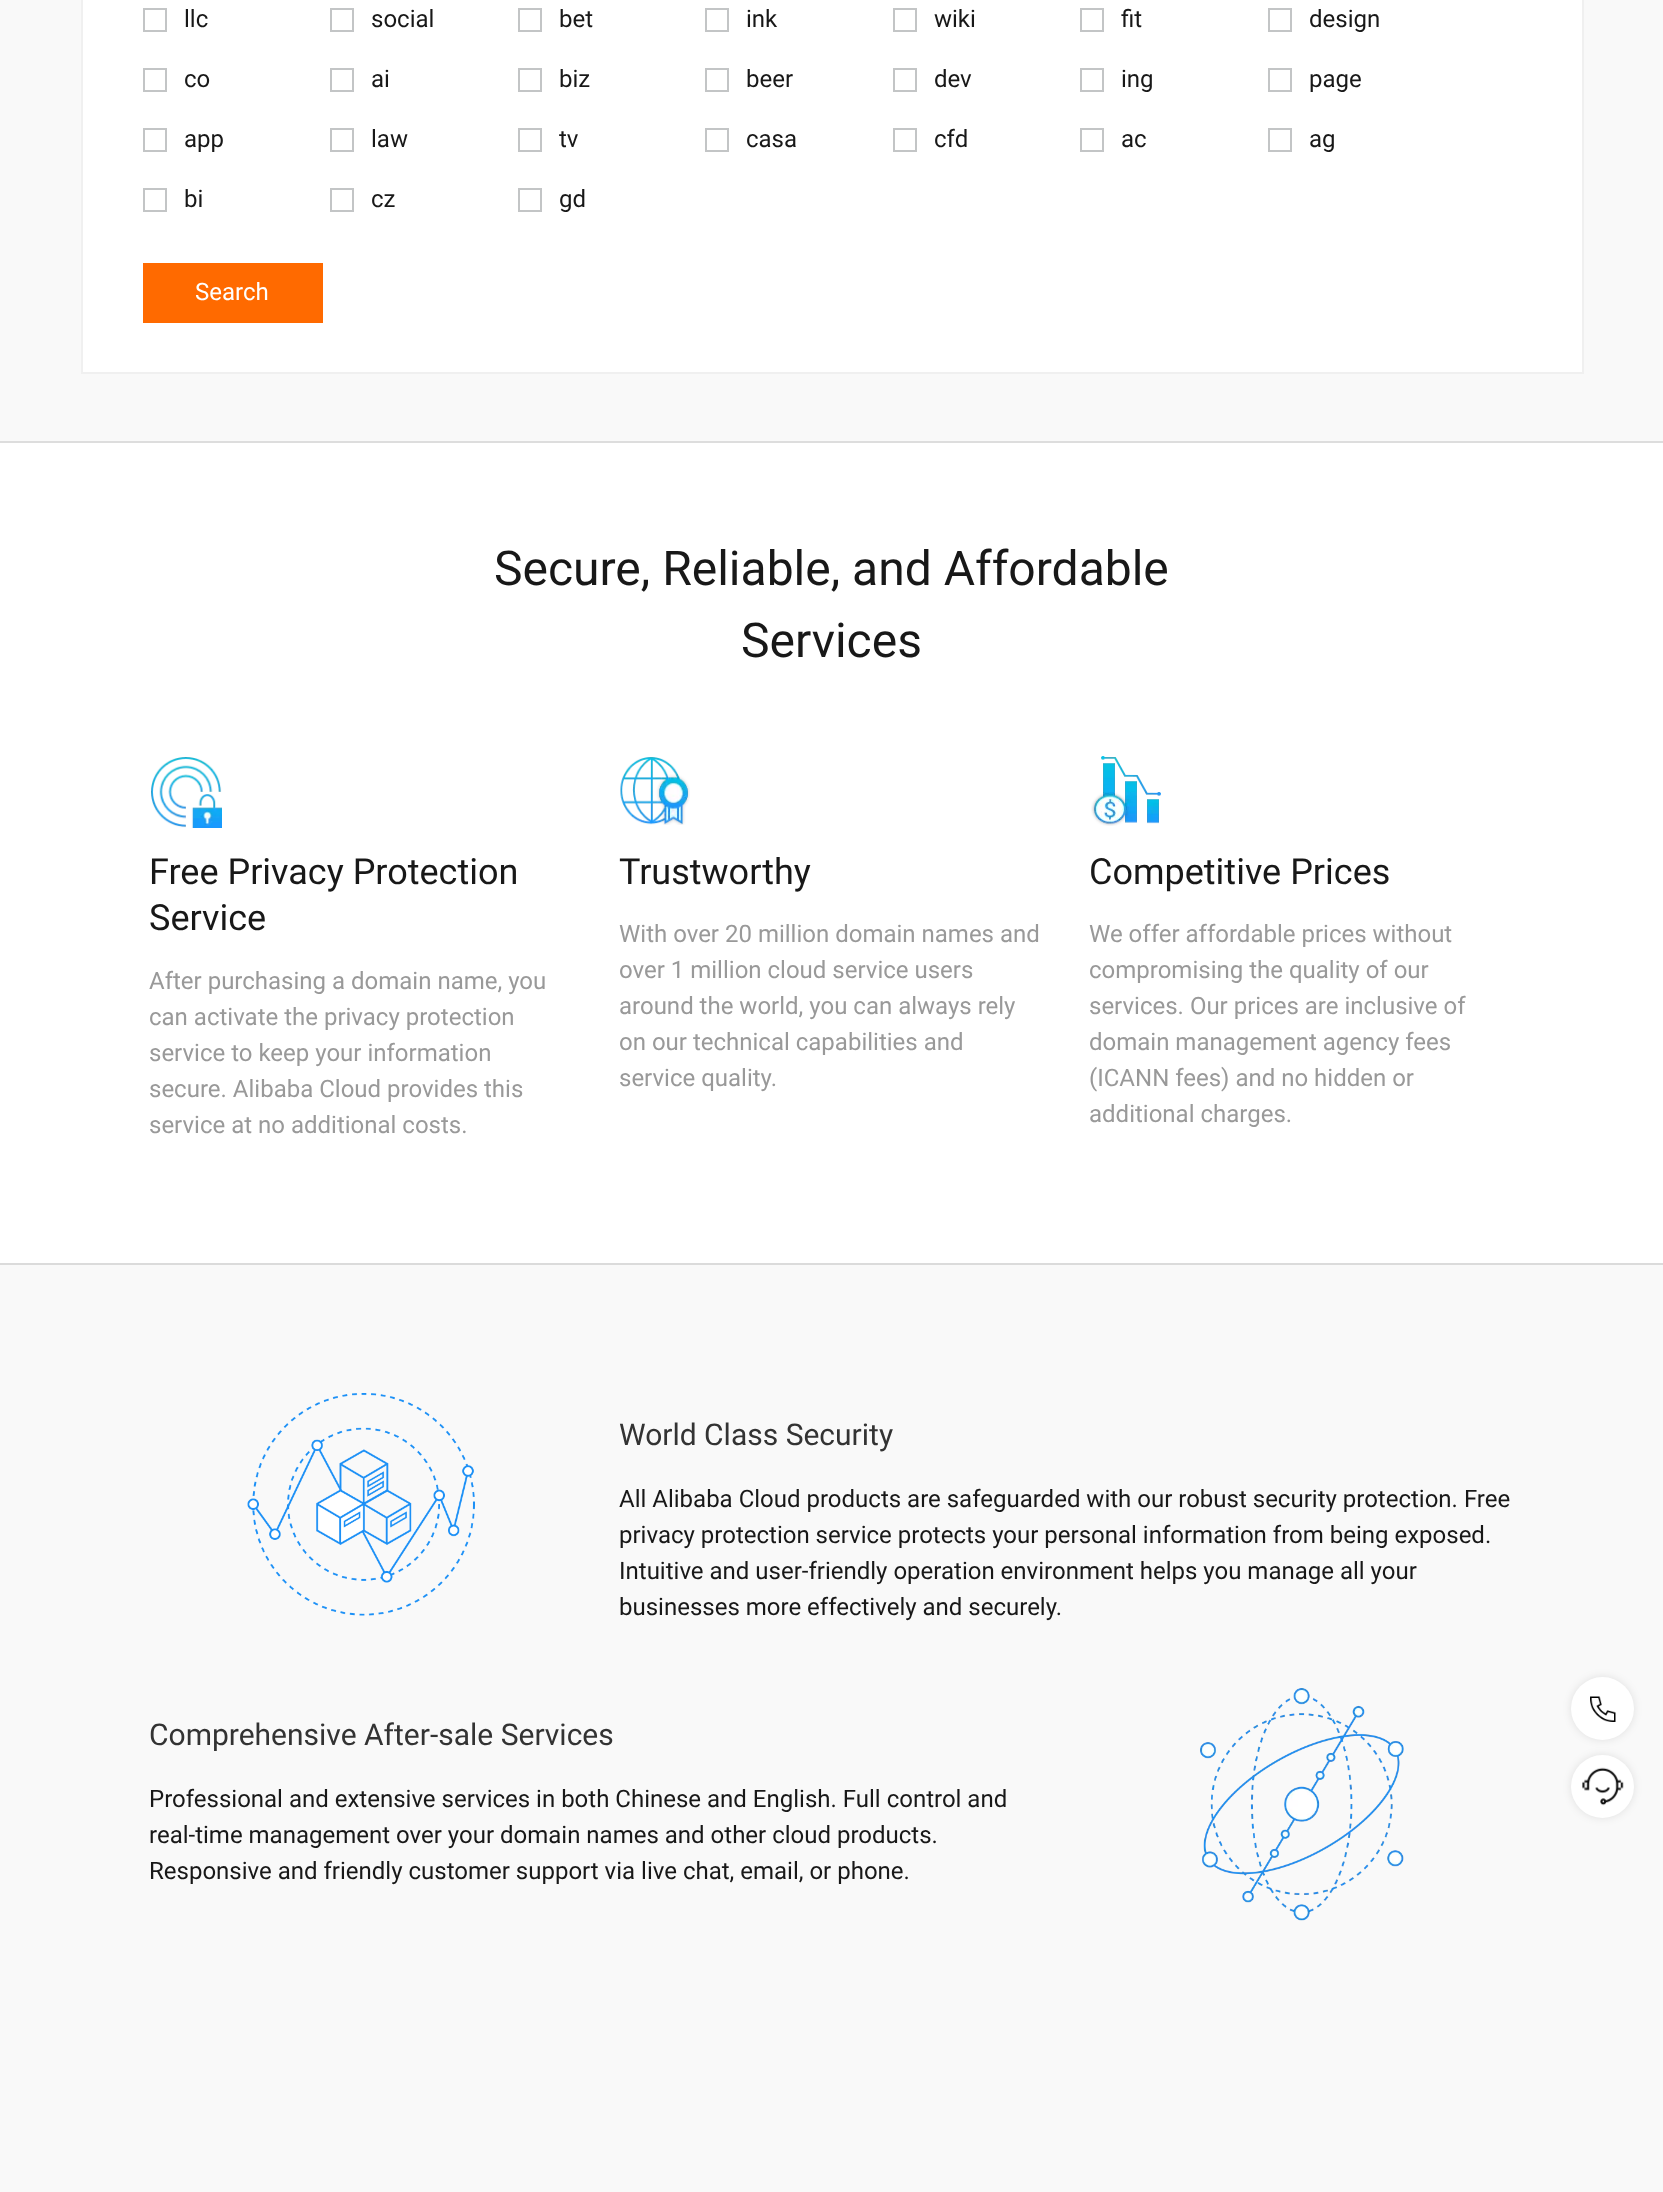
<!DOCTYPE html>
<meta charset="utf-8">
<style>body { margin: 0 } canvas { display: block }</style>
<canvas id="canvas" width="1663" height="2192"></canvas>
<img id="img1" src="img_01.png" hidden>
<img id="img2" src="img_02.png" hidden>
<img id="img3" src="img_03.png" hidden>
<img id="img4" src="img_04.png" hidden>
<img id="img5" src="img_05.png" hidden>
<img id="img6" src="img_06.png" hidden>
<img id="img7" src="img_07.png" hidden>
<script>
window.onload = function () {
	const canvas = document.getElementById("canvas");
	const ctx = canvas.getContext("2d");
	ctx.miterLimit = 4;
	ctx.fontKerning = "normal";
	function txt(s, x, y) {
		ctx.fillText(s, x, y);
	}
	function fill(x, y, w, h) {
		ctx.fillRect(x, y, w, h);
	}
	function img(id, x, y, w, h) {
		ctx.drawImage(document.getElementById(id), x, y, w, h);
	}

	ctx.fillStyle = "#F9F9F9";
	fill(0, 0, 1663, 2192);
	ctx.fillStyle = "#DDDDDD";
	fill(0, 441, 1663, 2);
	ctx.fillStyle = "#FFFFFF";
	ctx.beginPath();
	ctx.rect(82, -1, 1501, 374);
	ctx.fill();
	ctx.strokeStyle = "#F0F0F0";
	ctx.lineWidth = 2;
	ctx.stroke();
	ctx.strokeStyle = "#C3C5C6";
	ctx.strokeRect(144, 9, 22, 22);
	ctx.strokeRect(331, 9, 22, 22);
	ctx.strokeRect(519, 9, 22, 22);
	ctx.strokeRect(706, 9, 22, 22);
	ctx.strokeRect(894, 9, 22, 22);
	ctx.strokeRect(1081, 9, 22, 22);
	ctx.strokeRect(1269, 9, 22, 22);
	ctx.strokeRect(144, 69, 22, 22);
	ctx.strokeRect(331, 69, 22, 22);
	ctx.strokeRect(519, 69, 22, 22);
	ctx.strokeRect(706, 69, 22, 22);
	ctx.strokeRect(894, 69, 22, 22);
	ctx.strokeRect(1081, 69, 22, 22);
	ctx.strokeRect(1269, 69, 22, 22);
	ctx.strokeRect(144, 129, 22, 22);
	ctx.strokeRect(331, 129, 22, 22);
	ctx.strokeRect(519, 129, 22, 22);
	ctx.strokeRect(706, 129, 22, 22);
	ctx.strokeRect(894, 129, 22, 22);
	ctx.strokeRect(1081, 129, 22, 22);
	ctx.strokeRect(1269, 129, 22, 22);
	ctx.strokeRect(144, 189, 22, 22);
	ctx.strokeRect(331, 189, 22, 22);
	ctx.strokeRect(519, 189, 22, 22);
	ctx.fillStyle = "#FF6A00";
	fill(143, 263, 180, 60);
	ctx.fillStyle = "#FFFFFF";
	fill(0, 443, 1663, 820);
	img("img1", 151, 757, 71, 71);
	img("img2", 620, 757, 70, 68);
	img("img3", 1091, 756, 70, 70);
	ctx.fillStyle = "#DBDBDB";
	fill(0, 1263, 1663, 2);
	img("img4", 247, 1393, 228, 223);
	img("img5", 1200, 1688, 204, 233);
	ctx.fillStyle = "rgba(0, 0, 0, 0.1)";
	ctx.filter = "blur(4px)";
	ctx.beginPath();
	ctx.roundRect(1571, 1677, 63, 63, 31.5);
	ctx.fill();
	ctx.filter = "none";
	ctx.fillStyle = "#FFFFFF";
	ctx.beginPath();
	ctx.arc(1602.5, 1708.5, 31.5, 0, Math.PI * 2);
	ctx.fill();
	img("img6", 1590, 1696, 26, 26);
	ctx.fillStyle = "rgba(0, 0, 0, 0.1)";
	ctx.filter = "blur(4px)";
	ctx.beginPath();
	ctx.roundRect(1571, 1755, 63, 63, 31.5);
	ctx.fill();
	ctx.filter = "none";
	ctx.fillStyle = "#FFFFFF";
	ctx.beginPath();
	ctx.arc(1602.5, 1786.5, 31.5, 0, Math.PI * 2);
	ctx.fill();
	img("img7", 1582, 1767, 42, 39);
	ctx.font = "24px Roboto";
	ctx.fillStyle = "#181818";
	txt("llc", 184, 27);
	txt("social", 371, 27);
	txt("bet", 559, 27);
	txt("ink", 746, 27);
	txt("wiki", 934, 27);
	txt("fit", 1121, 27);
	txt("design", 1309, 27);
	txt("co", 184, 87);
	txt("ai", 371, 87);
	txt("biz", 559, 87);
	txt("beer", 746, 87);
	txt("dev", 934, 87);
	txt("ing", 1121, 87);
	txt("page", 1309, 87);
	txt("app", 184, 147);
	txt("law", 371, 147);
	txt("tv", 559, 147);
	txt("casa", 746, 147);
	txt("cfd", 934, 147);
	txt("ac", 1121, 147);
	txt("ag", 1309, 147);
	txt("bi", 184, 207);
	txt("cz", 371, 207);
	txt("gd", 559, 207);
	ctx.fillStyle = "#FFFFFF";
	txt("Search", 195, 300);
	ctx.font = "48px Roboto";
	ctx.fillStyle = "#181818";
	txt("Secure, Reliable, and Affordable", 494, 585);
	txt("Services", 741, 657);
	ctx.font = "36px Roboto";
	txt("Free Privacy Protection", 149, 884);
	txt("Service", 149, 930);
	ctx.font = "24px Roboto";
	ctx.fillStyle = "#999999";
	txt("After purchasing a domain name, you", 149, 989);
	txt("can activate the privacy protection", 149, 1025);
	txt("service to keep your information", 149, 1061);
	txt("secure. Alibaba Cloud provides this", 149, 1097);
	txt("service at no additional costs.", 149, 1133);
	ctx.font = "36px Roboto";
	ctx.fillStyle = "#181818";
	txt("Trustworthy", 619, 884);
	ctx.font = "24px Roboto";
	ctx.fillStyle = "#999999";
	txt("With over 20 million domain names and", 619, 942);
	txt("over 1 million cloud service users", 619, 978);
	txt("around the world, you can always rely", 619, 1014);
	txt("on our technical capabilities and", 619, 1050);
	txt("service quality.", 619, 1086);
	ctx.font = "36px Roboto";
	ctx.fillStyle = "#181818";
	txt("Competitive Prices", 1089, 884);
	ctx.font = "24px Roboto";
	ctx.fillStyle = "#999999";
	txt("We offer affordable prices without", 1089, 942);
	txt("compromising the quality of our", 1089, 978);
	txt("services. Our prices are inclusive of", 1089, 1014);
	txt("domain management agency fees", 1089, 1050);
	txt("(ICANN fees) and no hidden or", 1089, 1086);
	txt("additional charges.", 1089, 1122);
	ctx.font = "30px Roboto";
	ctx.fillStyle = "#333333";
	txt("World Class Security", 619, 1445);
	ctx.font = "24px Roboto";
	ctx.fillStyle = "#181818";
	txt("All Alibaba Cloud products are safeguarded with our robust security protection. Free", 619, 1507);
	txt("privacy protection service protects your personal information from being exposed.", 619, 1543);
	txt("Intuitive and user-friendly operation environment helps you manage all your", 619, 1579);
	txt("businesses more effectively and securely.", 619, 1615);
	ctx.font = "30px Roboto";
	ctx.fillStyle = "#333333";
	txt("Comprehensive After-sale Services", 149, 1745);
	ctx.font = "24px Roboto";
	ctx.fillStyle = "#181818";
	txt("Professional and extensive services in both Chinese and English. Full control and", 149, 1807);
	txt("real-time management over your domain names and other cloud products.", 149, 1843);
	txt("Responsive and friendly customer support via live chat, email, or phone.", 149, 1879);
};
</script>
